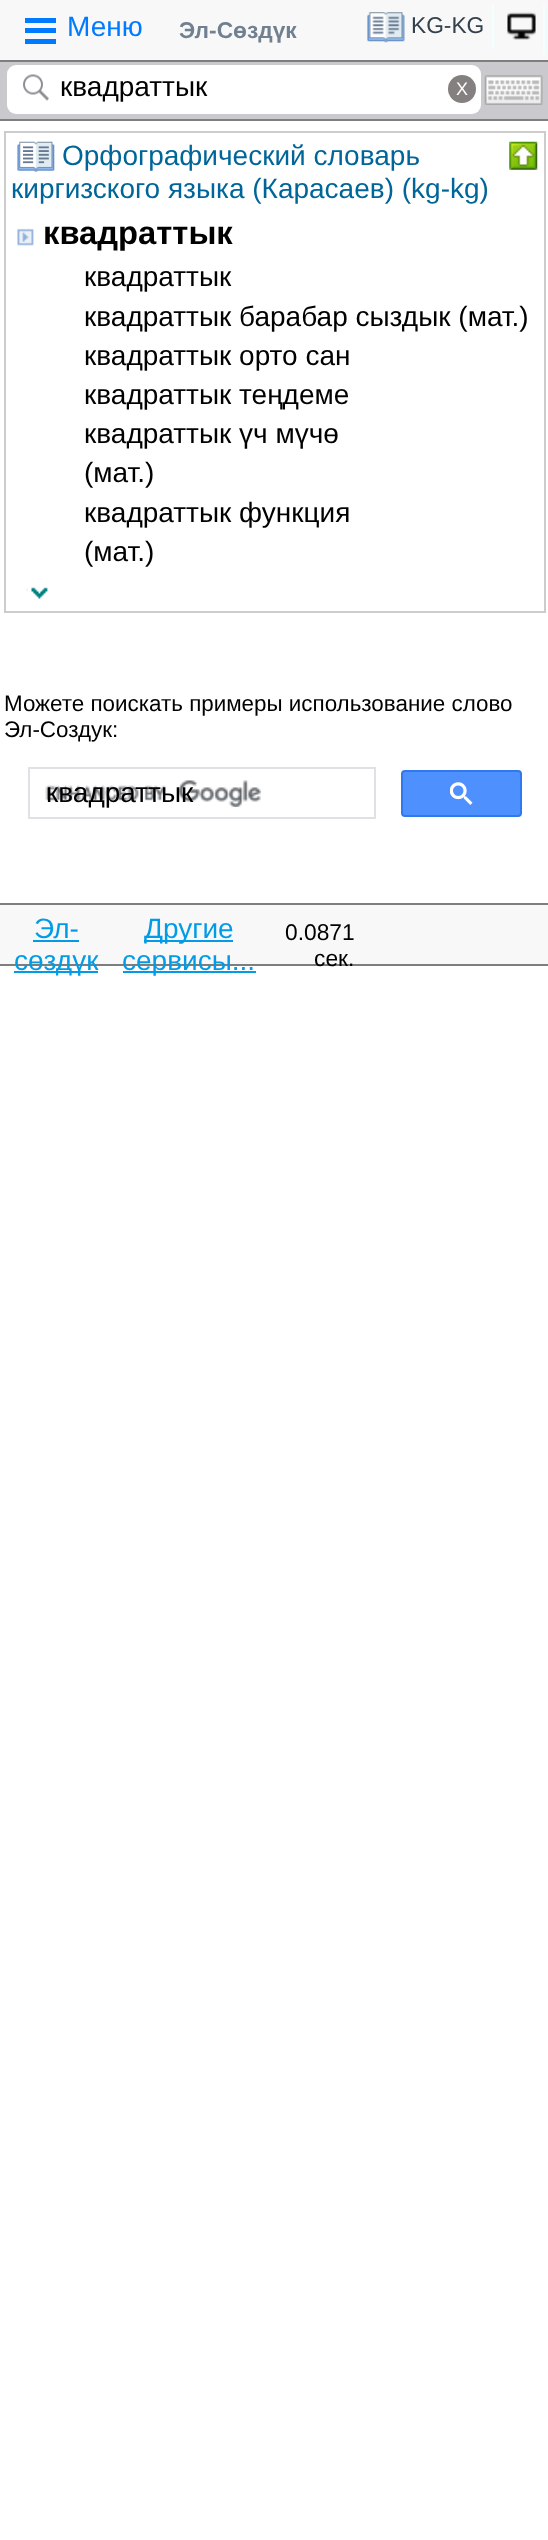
<!DOCTYPE html>
<meta charset="utf-8">
<style>body { margin: 0 } canvas { display: block }</style>
<canvas id="canvas" width="548" height="2540"></canvas>
<img id="img1" src="img_01.png" hidden>
<img id="img2" src="img_02.png" hidden>
<img id="img3" src="img_03.png" hidden>
<img id="img4" src="img_04.png" hidden>
<img id="img5" src="img_05.png" hidden>
<img id="img6" src="img_06.png" hidden>
<img id="img7" src="img_07.png" hidden>
<img id="img8" src="img_08.png" hidden>
<img id="img9" src="img_09.png" hidden>
<img id="img10" src="img_10.png" hidden>
<script>
window.onload = function () {
	const canvas = document.getElementById("canvas");
	const ctx = canvas.getContext("2d");
	ctx.miterLimit = 4;
	ctx.fontKerning = "normal";
	function txt(s, x, y) {
		ctx.fillText(s, x, y);
	}
	function fill(x, y, w, h) {
		ctx.fillRect(x, y, w, h);
	}
	function round(x, y, w, h, r) {
		ctx.beginPath();
		ctx.roundRect(x, y, w, h, r);
		ctx.fill();
	}
	function img(id, x, y, w, h) {
		ctx.drawImage(document.getElementById(id), x, y, w, h);
	}

	ctx.fillStyle = "#FFFFFF";
	fill(0, 0, 548, 2540);
	ctx.fillStyle = "#F8F8F8";
	fill(0, 0, 548, 60);
	ctx.fillStyle = "#7E7E7E";
	fill(0, 60, 548, 2);
	ctx.fillStyle = "#007BFF";
	fill(25, 18, 31, 5);
	fill(25, 28, 31, 5);
	fill(25, 39, 31, 5);
	ctx.fillStyle = "#F0FFFF";
	fill(492, 5, 2, 44);
	img("img1", 367, 12, 38, 31);
	fill(543, 5, 2, 49);
	img("img2", 507, 12, 29, 28);
	ctx.fillStyle = "#C9C9CE";
	fill(0, 62, 548, 57);
	ctx.fillStyle = "#7E7E7E";
	fill(0, 119, 548, 2);
	ctx.fillStyle = "#FFFFFF";
	round(7, 65, 474, 49, 9);
	img("img3", 23, 74, 26, 27);
	ctx.fillStyle = "#848080";
	ctx.beginPath();
	ctx.arc(462, 89, 14, 0, Math.PI * 2);
	ctx.fill();
	img("img4", 484, 75, 59, 30);
	ctx.strokeStyle = "#CCCCCC";
	ctx.lineWidth = 2;
	ctx.strokeRect(5, 132, 540, 480);
	img("img5", 17, 141, 38, 31);
	img("img6", 509, 141, 29, 29);
	img("img7", 17, 228, 17, 18);
	img("img8", 26, 587, 22, 12);
	ctx.strokeStyle = "#DFE1E5";
	ctx.strokeRect(29, 768, 346, 50);
	img("img9", 45, 780, 216, 27);
	ctx.fillStyle = "#4D90FE";
	ctx.beginPath();
	ctx.roundRect(402, 771, 119, 45, 3);
	ctx.fill();
	ctx.strokeStyle = "#3079ED";
	ctx.stroke();
	img("img10", 450, 782, 23, 23);
	ctx.fillStyle = "#F8F8F8";
	fill(0, 905, 548, 59);
	ctx.fillStyle = "#7E7E7E";
	fill(0, 903, 548, 2);
	fill(0, 964, 548, 2);
	ctx.fillStyle = "#039BE5";
	fill(33, 940, 46, 2);
	fill(14, 971, 84, 2);
	fill(144, 940, 89, 2);
	fill(123, 971, 133, 2);
	ctx.font = "28px Liberation Sans";
	ctx.fillStyle = "#007BFF";
	txt("Меню", 67, 36);
	ctx.font = "bold 22.75px Liberation Sans";
	ctx.fillStyle = "#708090";
	txt("Эл-Сөздүк", 179, 38);
	ctx.font = "22.75px Liberation Sans";
	ctx.fillStyle = "#33404D";
	txt("KG-KG", 411, 33);
	ctx.font = "28px Liberation Sans";
	ctx.fillStyle = "#000000";
	txt("квадраттык", 60, 96);
	ctx.font = "18px Liberation Sans";
	ctx.fillStyle = "#FFFFFF";
	txt("X", 456, 95);
	ctx.font = "28px Liberation Sans";
	ctx.fillStyle = "#006699";
	txt("Орфографический словарь", 62, 165);
	txt("киргизского языка (Карасаев) (kg-kg)", 11, 198);
	ctx.font = "bold 32.75px Liberation Sans";
	ctx.fillStyle = "#000000";
	txt("квадраттык", 43, 244);
	ctx.font = "28px Liberation Sans";
	txt("квадраттык", 84, 286);
	txt("квадраттык барабар сыздык (мат.)", 84, 326);
	txt("квадраттык орто сан", 84, 365);
	txt("квадраттык теңдеме", 84, 404);
	txt("квадраттык үч мүчө", 84, 443);
	txt("(мат.)", 84, 482);
	txt("квадраттык функция", 84, 522);
	txt("(мат.)", 84, 561);
	ctx.font = "22.4px Liberation Sans";
	txt("Можете поискать примеры использование слово", 4, 711);
	txt("Эл-Создук:", 4, 737);
	ctx.font = "28px Liberation Sans";
	txt("квадраттык", 46, 802);
	ctx.fillStyle = "#039BE5";
	txt("Эл-", 34, 938);
	txt("сөздүк", 14, 970);
	txt("Другие", 144, 938);
	txt("сервисы...", 122, 970);
	ctx.font = "22.75px Liberation Sans";
	ctx.fillStyle = "#000000";
	txt("0.0871", 285, 940);
	txt("сек.", 314, 966);
};
</script>
